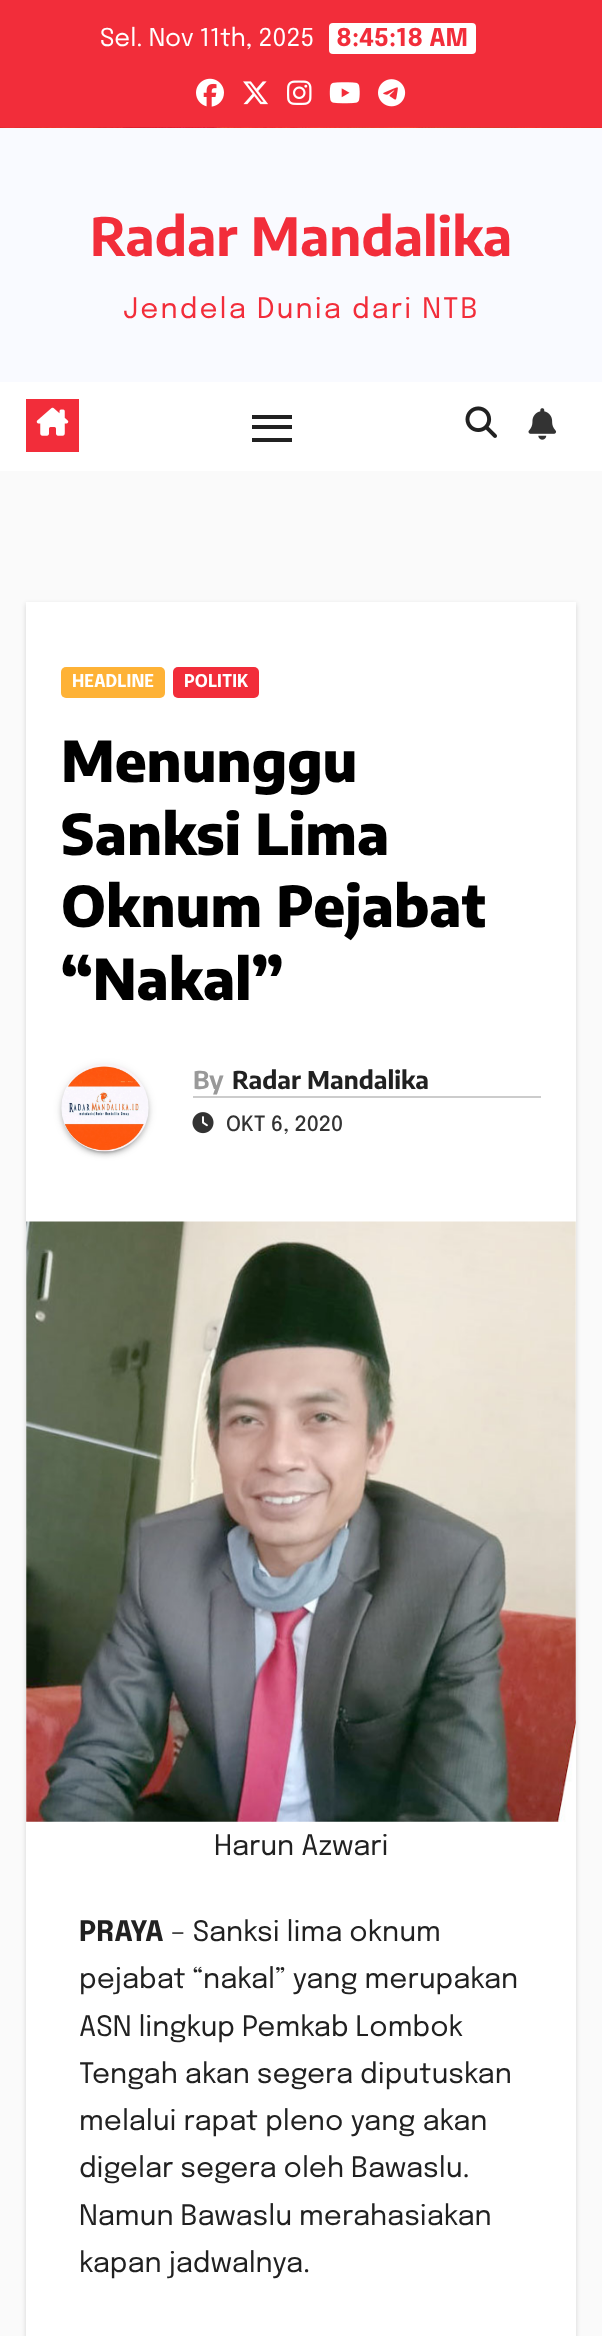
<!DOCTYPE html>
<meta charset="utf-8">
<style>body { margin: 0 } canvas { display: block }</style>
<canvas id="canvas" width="602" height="2336"></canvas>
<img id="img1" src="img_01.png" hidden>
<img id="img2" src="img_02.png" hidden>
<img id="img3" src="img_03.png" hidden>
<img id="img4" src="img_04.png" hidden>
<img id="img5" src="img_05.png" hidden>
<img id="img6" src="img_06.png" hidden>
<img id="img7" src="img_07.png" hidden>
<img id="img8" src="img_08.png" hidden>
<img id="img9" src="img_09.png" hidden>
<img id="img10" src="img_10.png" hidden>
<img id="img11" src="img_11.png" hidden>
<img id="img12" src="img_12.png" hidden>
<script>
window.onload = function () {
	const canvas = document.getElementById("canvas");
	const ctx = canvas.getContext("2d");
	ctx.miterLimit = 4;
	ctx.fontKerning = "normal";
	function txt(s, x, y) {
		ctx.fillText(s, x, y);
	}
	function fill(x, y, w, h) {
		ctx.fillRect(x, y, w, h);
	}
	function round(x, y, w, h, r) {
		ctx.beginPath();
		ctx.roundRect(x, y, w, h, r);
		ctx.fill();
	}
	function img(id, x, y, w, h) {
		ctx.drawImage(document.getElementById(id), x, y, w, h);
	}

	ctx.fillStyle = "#FAFAFA";
	fill(0, 0, 602, 2336);
	ctx.fillStyle = "#F22D3A";
	fill(0, 0, 602, 128);
	ctx.fillStyle = "#FFFFFF";
	round(329, 23, 147, 31, 4);
	img("img1", 196, 78, 28, 29);
	img("img2", 243, 81, 25, 24);
	img("img3", 287, 80, 25, 25);
	img("img4", 329, 82, 31, 22);
	img("img5", 378, 79, 28, 28);
	img("img6", 0, 127, 602, 1);
	ctx.fillStyle = "#F9FAFF";
	fill(0, 128, 602, 254);
	ctx.fillStyle = "#FFFFFF";
	fill(0, 382, 602, 89);
	ctx.fillStyle = "#F22D3A";
	fill(26, 399, 53, 53);
	img("img7", 36, 407, 33, 29);
	ctx.fillStyle = "#212121";
	fill(252, 415, 40, 4);
	fill(252, 425, 40, 4);
	fill(252, 438, 40, 4);
	img("img8", 465, 406, 32, 32);
	img("img9", 528, 408, 29, 32);
	ctx.fillStyle = "rgba(0, 0, 0, 0.15)";
	ctx.filter = "blur(2.5px)";
	ctx.beginPath();
	ctx.rect(26, 604, 550, 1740);
	ctx.fill();
	ctx.filter = "none";
	ctx.fillStyle = "#FFFFFF";
	fill(26, 602, 550, 1734);
	ctx.fillStyle = "#FEB236";
	round(61, 667, 104, 31, 5);
	ctx.fillStyle = "#F22D3A";
	round(173, 667, 86, 31, 5);
	ctx.fillStyle = "rgba(0, 0, 0, 0.12)";
	ctx.filter = "blur(4.5px)";
	ctx.beginPath();
	ctx.roundRect(61, 1066, 88, 87, 43.5);
	ctx.fill();
	ctx.filter = "none";
	ctx.fillStyle = "rgba(0, 0, 0, 0.2)";
	ctx.filter = "blur(1px)";
	ctx.beginPath();
	ctx.roundRect(65, 1073, 80, 80, 40);
	ctx.fill();
	ctx.filter = "none";
	ctx.fillStyle = "rgba(0, 0, 0, 0.14)";
	ctx.filter = "blur(2px)";
	ctx.beginPath();
	ctx.roundRect(61, 1068, 88, 87, 43.5);
	ctx.fill();
	ctx.filter = "none";
	img("img10", 61, 1064, 88, 88);
	ctx.fillStyle = "#CCCCCC";
	fill(193, 1096, 348, 2);
	img("img11", 192, 1112, 22, 22);
	img("img12", 26, 1221, 550, 601);
	ctx.font = "24.5px Epilogue";
	ctx.fillStyle = "#FFFFFF";
	txt("Sel. Nov 11th, 2025", 100, 46);
	ctx.font = "bold 24.5px Epilogue";
	ctx.fillStyle = "#F22D3A";
	txt("8:45:18 AM", 336, 46);
	ctx.font = "bold 52.5px Encode Sans Condensed";
	txt("Radar Mandalika", 90, 256);
	ctx.letterSpacing = "2.1px";
	ctx.font = "28px Epilogue";
	txt("Jendela Dunia dari NTB", 123, 318);
	ctx.letterSpacing = "0px";
	ctx.font = "bold 17.5px Epilogue";
	ctx.fillStyle = "#FFFFFF";
	txt("HEADLINE", 72, 687);
	txt("POLITIK", 184, 687);
	ctx.font = "800 56px Encode Sans Condensed";
	ctx.fillStyle = "#000000";
	txt("Menunggu", 61, 782);
	txt("Sanksi Lima", 61, 855);
	txt("Oknum Pejabat", 61, 927);
	txt("“Nakal”", 61, 1000);
	ctx.font = "bold 24.5px Encode Sans Condensed";
	ctx.fillStyle = "#999999";
	txt("By", 193, 1089);
	ctx.fillStyle = "#212121";
	txt("Radar Mandalika", 232, 1089);
	ctx.font = "500 21px Epilogue";
	ctx.fillStyle = "#333333";
	txt("OKT 6, 2020", 226, 1131);
	ctx.font = "28px Epilogue";
	ctx.fillStyle = "#212121";
	txt("Harun Azwari", 214, 1855);
	ctx.font = "bold 28px Epilogue";
	txt("PRAYA", 79, 1941);
	ctx.font = "28px Epilogue";
	txt("– Sanksi lima oknum", 171, 1941);
	txt("pejabat “nakal” yang merupakan", 79, 1988);
	txt("ASN lingkup Pemkab Lombok", 79, 2036);
	txt("Tengah akan segera diputuskan", 79, 2083);
	txt("melalui rapat pleno yang akan", 79, 2130);
	txt("digelar segera oleh Bawaslu.", 79, 2177);
	txt("Namun Bawaslu merahasiakan", 79, 2225);
	txt("kapan jadwalnya.", 79, 2272);
};
</script>
